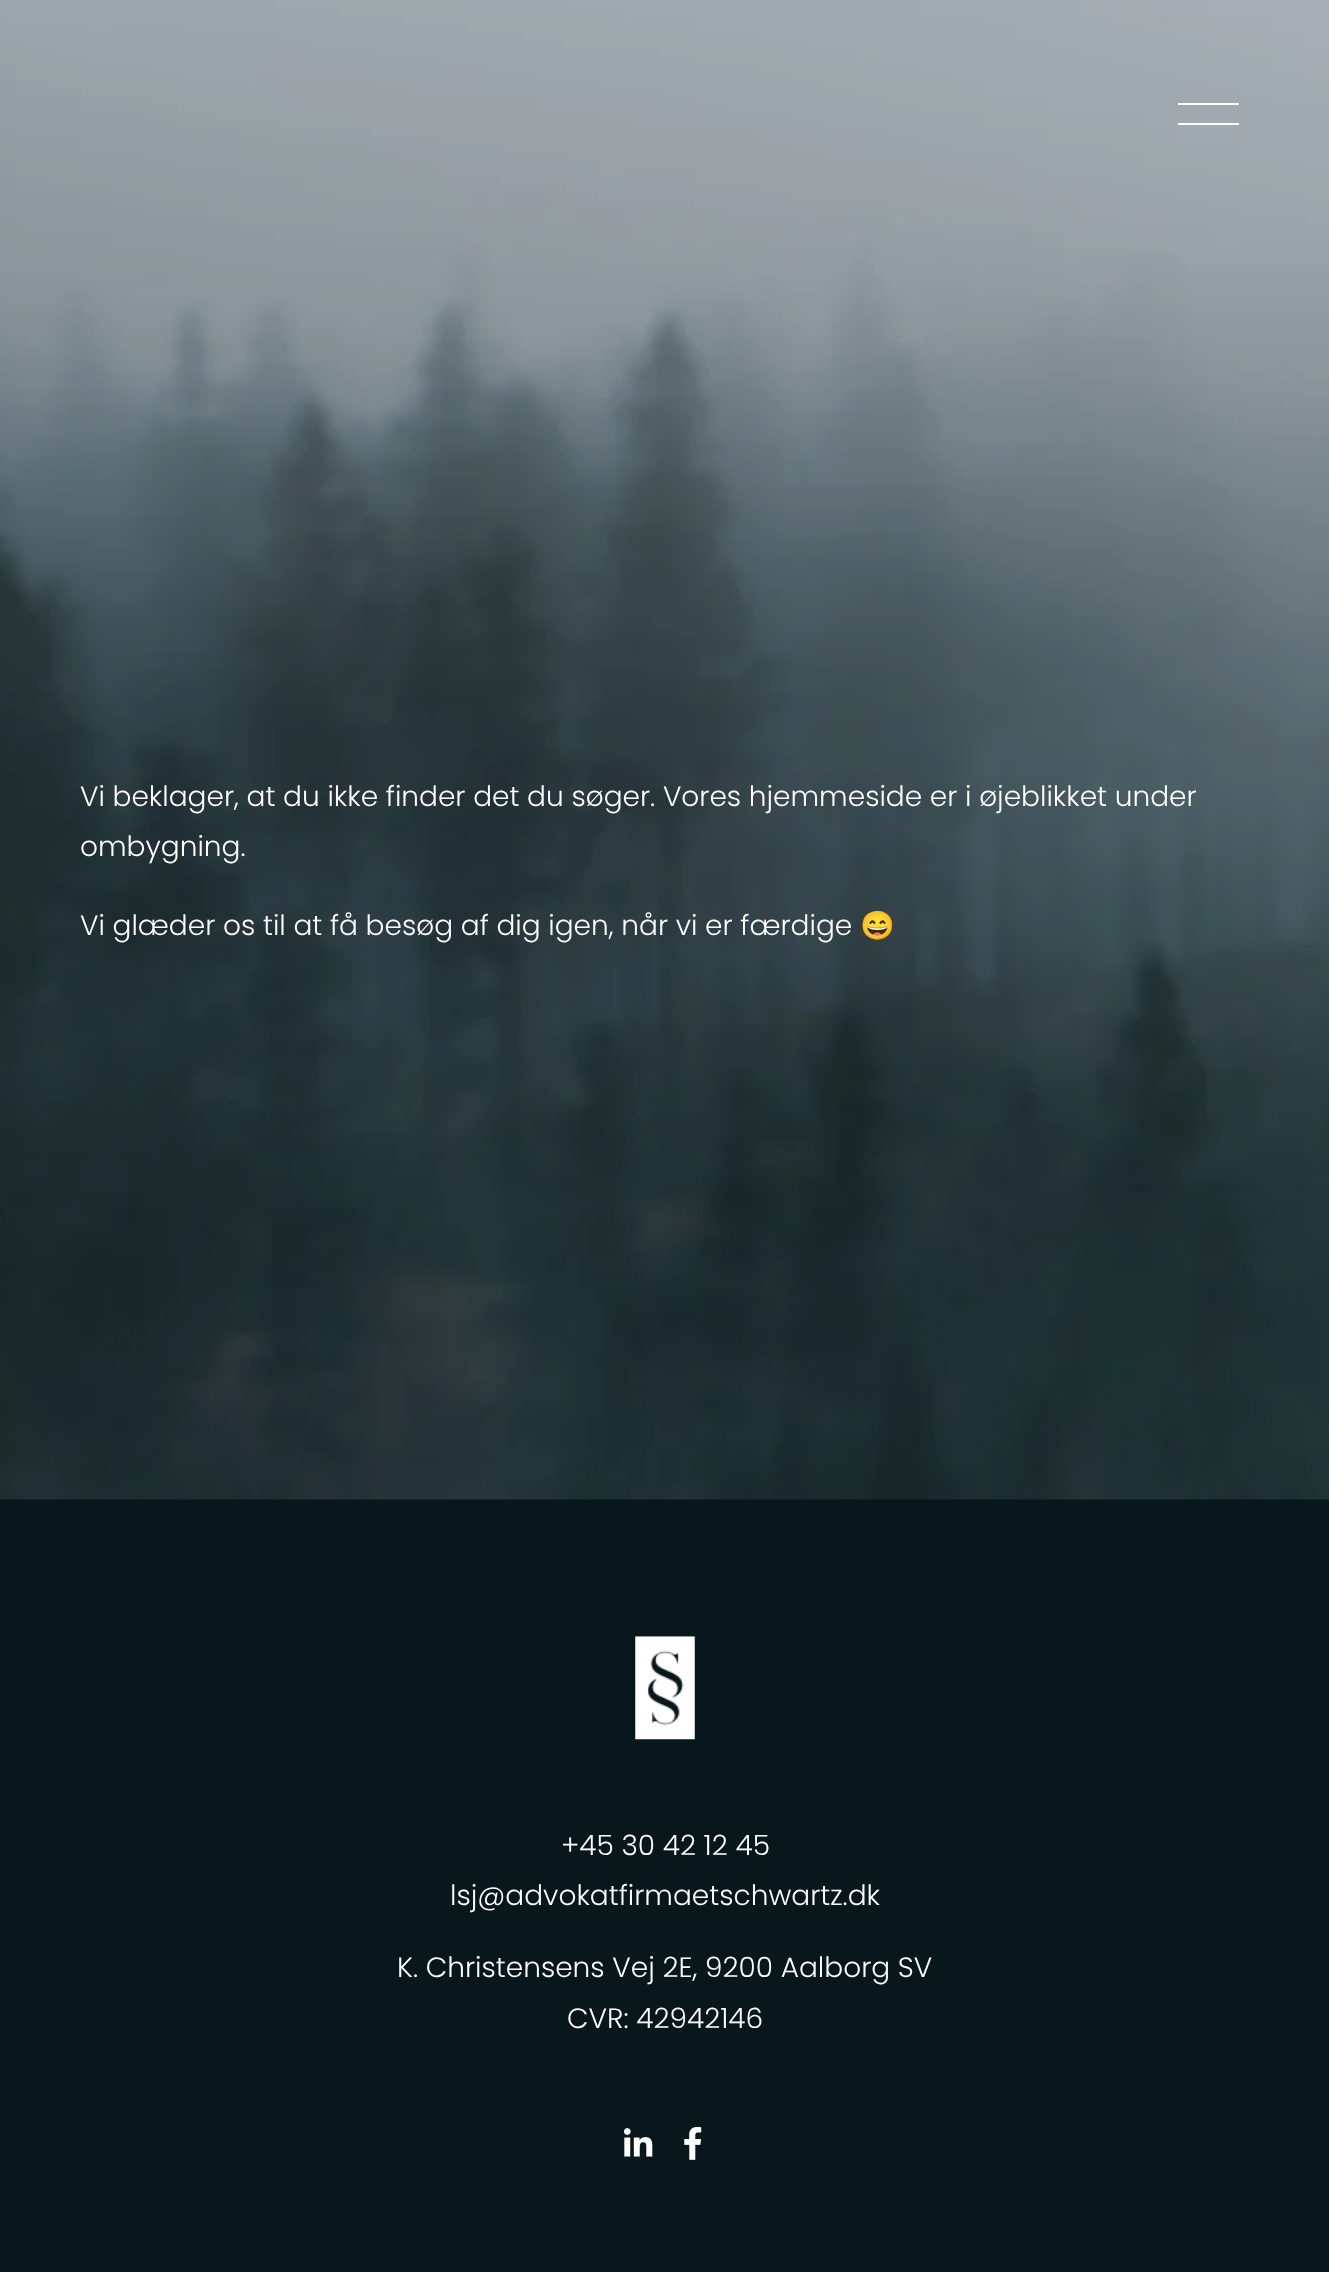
<!DOCTYPE html>
<meta charset="utf-8">
<style>body { margin: 0 } canvas { display: block }</style>
<canvas id="canvas" width="1329" height="2272"></canvas>
<img id="img1" src="img_01.png" hidden>
<img id="img2" src="img_02.png" hidden>
<img id="img3" src="img_03.png" hidden>
<img id="img4" src="img_04.png" hidden>
<script>
window.onload = function () {
	const canvas = document.getElementById("canvas");
	const ctx = canvas.getContext("2d");
	ctx.miterLimit = 4;
	ctx.fontKerning = "normal";
	function txt(s, x, y) {
		ctx.fillText(s, x, y);
	}
	function fill(x, y, w, h) {
		ctx.fillRect(x, y, w, h);
	}
	function img(id, x, y, w, h) {
		ctx.drawImage(document.getElementById(id), x, y, w, h);
	}

	ctx.fillStyle = "#07171C";
	fill(0, 0, 1329, 2272);
	img("img1", 0, 0, 1329, 1500);
	ctx.fillStyle = "#FFFFFF";
	fill(1178, 103, 61, 2);
	fill(1178, 123, 61, 2);
	img("img2", 635, 1636, 60, 104);
	img("img3", 623, 2128, 30, 29);
	img("img4", 684, 2127, 18, 33);
	ctx.font = "300 28px Poppins";
	txt("Vi beklager, at du ikke finder det du søger. Vores hjemmeside er i øjeblikket under", 80, 806);
	txt("ombygning.", 80, 856);
	txt("Vi glæder os til at få besøg af dig igen, når vi er færdige", 80, 935);
	ctx.font = "28px Noto Color Emoji";
	txt("😄", 860, 935);
	ctx.font = "300 28px Poppins";
	txt("+45 30 42 12 45", 561, 1855);
	txt("lsj@advokatfirmaetschwartz.dk", 450, 1905);
	txt("K. Christensens Vej 2E, 9200 Aalborg SV", 397, 1977);
	txt("CVR: 42942146", 567, 2028);
};
</script>
